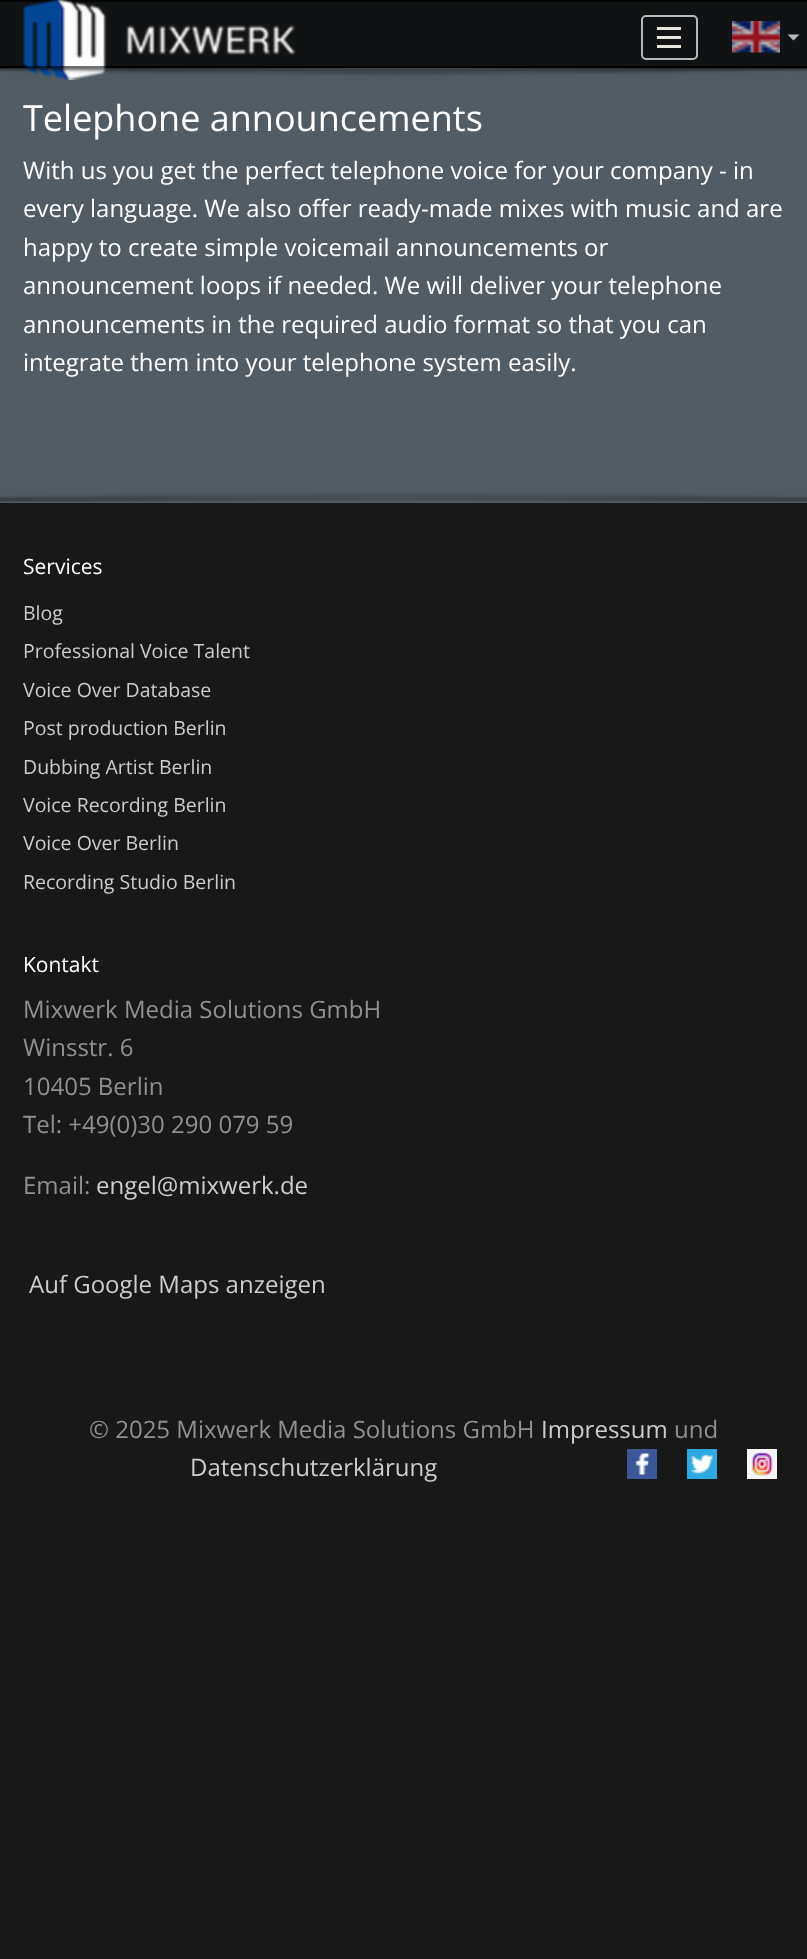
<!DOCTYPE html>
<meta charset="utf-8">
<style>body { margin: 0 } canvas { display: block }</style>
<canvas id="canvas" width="807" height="1959"></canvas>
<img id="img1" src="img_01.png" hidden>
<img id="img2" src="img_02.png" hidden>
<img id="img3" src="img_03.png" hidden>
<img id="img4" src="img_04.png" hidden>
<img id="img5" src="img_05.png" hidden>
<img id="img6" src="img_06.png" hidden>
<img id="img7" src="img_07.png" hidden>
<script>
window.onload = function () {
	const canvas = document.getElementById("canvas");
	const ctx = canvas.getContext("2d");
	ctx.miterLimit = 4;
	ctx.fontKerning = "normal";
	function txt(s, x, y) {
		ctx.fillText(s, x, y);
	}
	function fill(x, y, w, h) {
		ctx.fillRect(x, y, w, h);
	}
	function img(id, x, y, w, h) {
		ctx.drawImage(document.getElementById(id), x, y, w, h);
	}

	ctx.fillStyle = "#181818";
	fill(0, 0, 807, 1959);
	ctx.fillStyle = "#525C64";
	fill(0, 68, 807, 435);
	ctx.fillStyle = "#101214";
	fill(0, 2, 807, 64);
	ctx.fillStyle = "#030404";
	fill(0, 0, 807, 2);
	fill(0, 66, 807, 2);
	img("img1", 23, 0, 273, 80);
	ctx.beginPath();
	ctx.roundRect(642, 16, 55, 43, 4);
	ctx.strokeStyle = "#B7B8B9";
	ctx.lineWidth = 2;
	ctx.stroke();
	ctx.fillStyle = "#E7E6DD";
	fill(657, 36, 24, 3);
	fill(657, 27, 24, 3);
	fill(657, 45, 24, 3);
	img("img2", 732, 21, 48, 32);
	ctx.fillStyle = "#B7B8B9";
	ctx.beginPath();
	ctx.moveTo(787.5, 34.5);
	ctx.lineTo(799.5, 34.5);
	ctx.lineTo(793.5, 40.5);
	ctx.closePath();
	ctx.fill();
	img("img3", 0, 66, 807, 10);
	img("img4", 0, 492, 807, 10);
	img("img5", 627, 1449, 30, 30);
	img("img6", 687, 1449, 30, 30);
	img("img7", 747, 1449, 30, 30);
	ctx.font = "36px Open Sans";
	ctx.fillStyle = "#FFFFFF";
	txt("Telephone announcements", 23, 131);
	ctx.font = "24px Open Sans";
	txt("With us you get the perfect telephone voice for your company - in", 23, 179);
	txt("every language. We also offer ready-made mixes with music and are", 23, 217);
	txt("happy to create simple voicemail announcements or", 23, 256);
	txt("announcement loops if needed. We will deliver your telephone", 23, 294);
	txt("announcements in the required audio format so that you can", 23, 333);
	txt("integrate them into your telephone system easily.", 23, 371);
	ctx.font = "21px Open Sans";
	txt("Services", 23, 574);
	ctx.font = "19.5px Open Sans";
	ctx.fillStyle = "#CCCCCC";
	txt("Blog", 23, 620);
	txt("Professional Voice Talent", 23, 658);
	txt("Voice Over Database", 23, 697);
	txt("Post production Berlin", 23, 735);
	txt("Dubbing Artist Berlin", 23, 774);
	txt("Voice Recording Berlin", 23, 812);
	txt("Voice Over Berlin", 23, 850);
	txt("Recording Studio Berlin", 23, 889);
	ctx.font = "21px Open Sans";
	ctx.fillStyle = "#FFFFFF";
	txt("Kontakt", 23, 972);
	ctx.font = "24px Open Sans";
	ctx.fillStyle = "#919090";
	txt("Mixwerk Media Solutions GmbH", 23, 1018);
	txt("Winsstr. 6", 23, 1056);
	txt("10405 Berlin", 23, 1095);
	txt("Tel: +49(0)30 290 079 59", 23, 1133);
	txt("Email:", 23, 1194);
	ctx.fillStyle = "#CCCCCC";
	txt("engel@mixwerk.de", 96, 1194);
	txt("Auf Google Maps anzeigen", 29, 1293);
	ctx.fillStyle = "#919090";
	txt("© 2025 Mixwerk Media Solutions GmbH", 89, 1438);
	ctx.fillStyle = "#CCCCCC";
	txt("Impressum", 541, 1438);
	ctx.fillStyle = "#919090";
	txt("und", 674, 1438);
	ctx.fillStyle = "#CCCCCC";
	txt("Datenschutzerklärung", 190, 1476);
};
</script>
